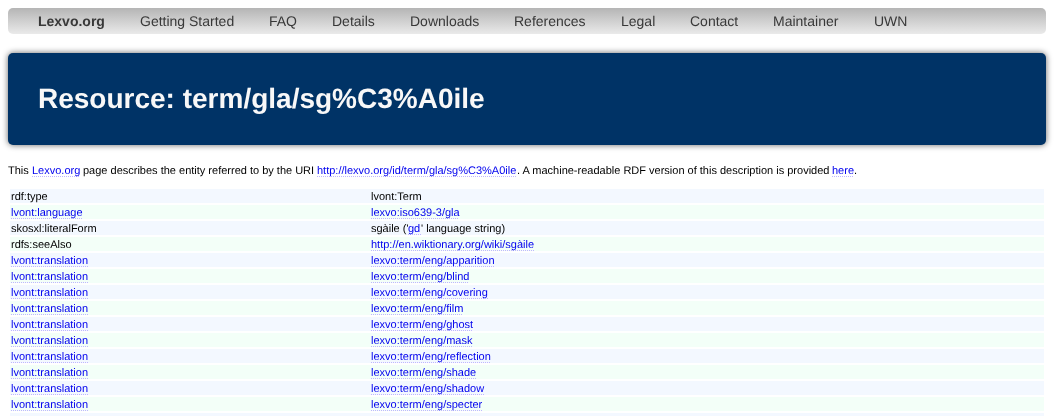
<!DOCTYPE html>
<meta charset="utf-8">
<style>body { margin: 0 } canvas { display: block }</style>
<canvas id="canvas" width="1054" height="416"></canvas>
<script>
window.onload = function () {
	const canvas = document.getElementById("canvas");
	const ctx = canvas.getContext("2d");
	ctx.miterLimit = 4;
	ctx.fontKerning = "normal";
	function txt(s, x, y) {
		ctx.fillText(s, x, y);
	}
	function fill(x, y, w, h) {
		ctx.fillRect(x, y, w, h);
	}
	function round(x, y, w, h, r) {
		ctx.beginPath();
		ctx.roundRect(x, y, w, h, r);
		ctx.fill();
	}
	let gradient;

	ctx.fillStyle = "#FFFFFF";
	fill(0, 0, 1054, 416);
	gradient = ctx.createLinearGradient(527, 8, 527, 34);
	gradient.addColorStop(0, "#B5B5B5");
	gradient.addColorStop(1, "#EAEAEA");
	ctx.fillStyle = gradient;
	round(8, 8, 1038, 26, 5);
	ctx.fillStyle = "rgba(0, 0, 0, 0.6)";
	ctx.filter = "blur(3px)";
	ctx.beginPath();
	ctx.roundRect(8, 53, 1038, 92, 5);
	ctx.fill();
	ctx.filter = "none";
	ctx.fillStyle = "#003366";
	round(8, 53, 1038, 92, 5);
	ctx.beginPath();
	ctx.moveTo(32, 176.5);
	ctx.lineTo(80, 176.5);
	ctx.strokeStyle = "#BFB6FF";
	ctx.setLineDash([1, 1]);
	ctx.stroke();
	ctx.beginPath();
	ctx.moveTo(317, 176.5);
	ctx.lineTo(517, 176.5);
	ctx.stroke();
	ctx.beginPath();
	ctx.moveTo(832, 176.5);
	ctx.lineTo(854, 176.5);
	ctx.stroke();
	ctx.fillStyle = "#F3F8FF";
	fill(10, 189, 1034, 14);
	ctx.fillStyle = "#F3FFF8";
	fill(10, 205, 1034, 14);
	ctx.beginPath();
	ctx.moveTo(11, 218.5);
	ctx.lineTo(83, 218.5);
	ctx.stroke();
	ctx.beginPath();
	ctx.moveTo(371, 218.5);
	ctx.lineTo(459, 218.5);
	ctx.stroke();
	ctx.fillStyle = "#F3F8FF";
	fill(10, 221, 1034, 14);
	ctx.beginPath();
	ctx.moveTo(408, 234.5);
	ctx.lineTo(421, 234.5);
	ctx.stroke();
	ctx.fillStyle = "#F3FFF8";
	fill(10, 237, 1034, 14);
	ctx.beginPath();
	ctx.moveTo(371, 250.5);
	ctx.lineTo(534, 250.5);
	ctx.stroke();
	ctx.fillStyle = "#F3F8FF";
	fill(10, 253, 1034, 14);
	ctx.beginPath();
	ctx.moveTo(11, 266.5);
	ctx.lineTo(88, 266.5);
	ctx.stroke();
	ctx.beginPath();
	ctx.moveTo(371, 266.5);
	ctx.lineTo(494, 266.5);
	ctx.stroke();
	ctx.fillStyle = "#F3FFF8";
	fill(10, 269, 1034, 14);
	ctx.beginPath();
	ctx.moveTo(11, 282.5);
	ctx.lineTo(88, 282.5);
	ctx.stroke();
	ctx.beginPath();
	ctx.moveTo(371, 282.5);
	ctx.lineTo(469, 282.5);
	ctx.stroke();
	ctx.fillStyle = "#F3F8FF";
	fill(10, 285, 1034, 14);
	ctx.beginPath();
	ctx.moveTo(11, 298.5);
	ctx.lineTo(88, 298.5);
	ctx.stroke();
	ctx.beginPath();
	ctx.moveTo(371, 298.5);
	ctx.lineTo(488, 298.5);
	ctx.stroke();
	ctx.fillStyle = "#F3FFF8";
	fill(10, 301, 1034, 14);
	ctx.beginPath();
	ctx.moveTo(11, 314.5);
	ctx.lineTo(88, 314.5);
	ctx.stroke();
	ctx.beginPath();
	ctx.moveTo(371, 314.5);
	ctx.lineTo(463, 314.5);
	ctx.stroke();
	ctx.fillStyle = "#F3F8FF";
	fill(10, 317, 1034, 14);
	ctx.beginPath();
	ctx.moveTo(11, 330.5);
	ctx.lineTo(88, 330.5);
	ctx.stroke();
	ctx.beginPath();
	ctx.moveTo(371, 330.5);
	ctx.lineTo(473, 330.5);
	ctx.stroke();
	ctx.fillStyle = "#F3FFF8";
	fill(10, 333, 1034, 14);
	ctx.beginPath();
	ctx.moveTo(11, 346.5);
	ctx.lineTo(88, 346.5);
	ctx.stroke();
	ctx.beginPath();
	ctx.moveTo(371, 346.5);
	ctx.lineTo(472, 346.5);
	ctx.stroke();
	ctx.fillStyle = "#F3F8FF";
	fill(10, 349, 1034, 14);
	ctx.beginPath();
	ctx.moveTo(11, 362.5);
	ctx.lineTo(88, 362.5);
	ctx.stroke();
	ctx.beginPath();
	ctx.moveTo(371, 362.5);
	ctx.lineTo(491, 362.5);
	ctx.stroke();
	ctx.fillStyle = "#F3FFF8";
	fill(10, 365, 1034, 14);
	ctx.beginPath();
	ctx.moveTo(11, 378.5);
	ctx.lineTo(88, 378.5);
	ctx.stroke();
	ctx.beginPath();
	ctx.moveTo(371, 378.5);
	ctx.lineTo(476, 378.5);
	ctx.stroke();
	ctx.fillStyle = "#F3F8FF";
	fill(10, 381, 1034, 14);
	ctx.beginPath();
	ctx.moveTo(11, 394.5);
	ctx.lineTo(88, 394.5);
	ctx.stroke();
	ctx.beginPath();
	ctx.moveTo(371, 394.5);
	ctx.lineTo(484, 394.5);
	ctx.stroke();
	ctx.fillStyle = "#F3FFF8";
	fill(10, 397, 1034, 14);
	ctx.beginPath();
	ctx.moveTo(11, 410.5);
	ctx.lineTo(88, 410.5);
	ctx.stroke();
	ctx.beginPath();
	ctx.moveTo(371, 410.5);
	ctx.lineTo(482, 410.5);
	ctx.stroke();
	ctx.fillStyle = "#F3F8FF";
	fill(10, 413, 1034, 3);
	ctx.font = "bold 14px Liberation Sans";
	ctx.fillStyle = "#383838";
	txt("Lexvo.org", 38, 26);
	ctx.font = "14px Liberation Sans";
	txt("Getting Started", 140, 26);
	txt("FAQ", 269, 26);
	txt("Details", 332, 26);
	txt("Downloads", 410, 26);
	txt("References", 514, 26);
	txt("Legal", 621, 26);
	txt("Contact", 690, 26);
	txt("Maintainer", 773, 26);
	txt("UWN", 874, 26);
	ctx.font = "bold 28px Liberation Sans";
	ctx.fillStyle = "#F8F8F8";
	txt("Resource: term/gla/sg%C3%A0ile", 38, 108);
	ctx.font = "11px Liberation Sans";
	ctx.fillStyle = "#000000";
	txt("This", 8, 174);
	ctx.fillStyle = "#0000EE";
	txt("Lexvo.org", 32, 174);
	ctx.fillStyle = "#000000";
	txt("page describes the entity referred to by the URI", 83, 174);
	ctx.fillStyle = "#0000EE";
	txt("http://lexvo.org/id/term/gla/sg%C3%A0ile", 317, 174);
	ctx.fillStyle = "#000000";
	txt(". A machine-readable RDF version of this description is provided", 517, 174);
	ctx.fillStyle = "#0000EE";
	txt("here", 832, 174);
	ctx.fillStyle = "#000000";
	txt(".", 854, 174);
	txt("rdf:type", 11, 200);
	txt("lvont:Term", 371, 200);
	ctx.fillStyle = "#0000EE";
	txt("lvont:language", 11, 216);
	txt("lexvo:iso639-3/gla", 371, 216);
	ctx.fillStyle = "#000000";
	txt("skosxl:literalForm", 11, 232);
	txt("sgàile ('", 371, 232);
	ctx.fillStyle = "#0000EE";
	txt("gd", 408, 232);
	ctx.fillStyle = "#000000";
	txt("' language string)", 421, 232);
	txt("rdfs:seeAlso", 11, 248);
	ctx.fillStyle = "#0000EE";
	txt("http://en.wiktionary.org/wiki/sgàile", 371, 248);
	txt("lvont:translation", 11, 264);
	txt("lexvo:term/eng/apparition", 371, 264);
	txt("lvont:translation", 11, 280);
	txt("lexvo:term/eng/blind", 371, 280);
	txt("lvont:translation", 11, 296);
	txt("lexvo:term/eng/covering", 371, 296);
	txt("lvont:translation", 11, 312);
	txt("lexvo:term/eng/film", 371, 312);
	txt("lvont:translation", 11, 328);
	txt("lexvo:term/eng/ghost", 371, 328);
	txt("lvont:translation", 11, 344);
	txt("lexvo:term/eng/mask", 371, 344);
	txt("lvont:translation", 11, 360);
	txt("lexvo:term/eng/reflection", 371, 360);
	txt("lvont:translation", 11, 376);
	txt("lexvo:term/eng/shade", 371, 376);
	txt("lvont:translation", 11, 392);
	txt("lexvo:term/eng/shadow", 371, 392);
	txt("lvont:translation", 11, 408);
	txt("lexvo:term/eng/specter", 371, 408);
};
</script>
